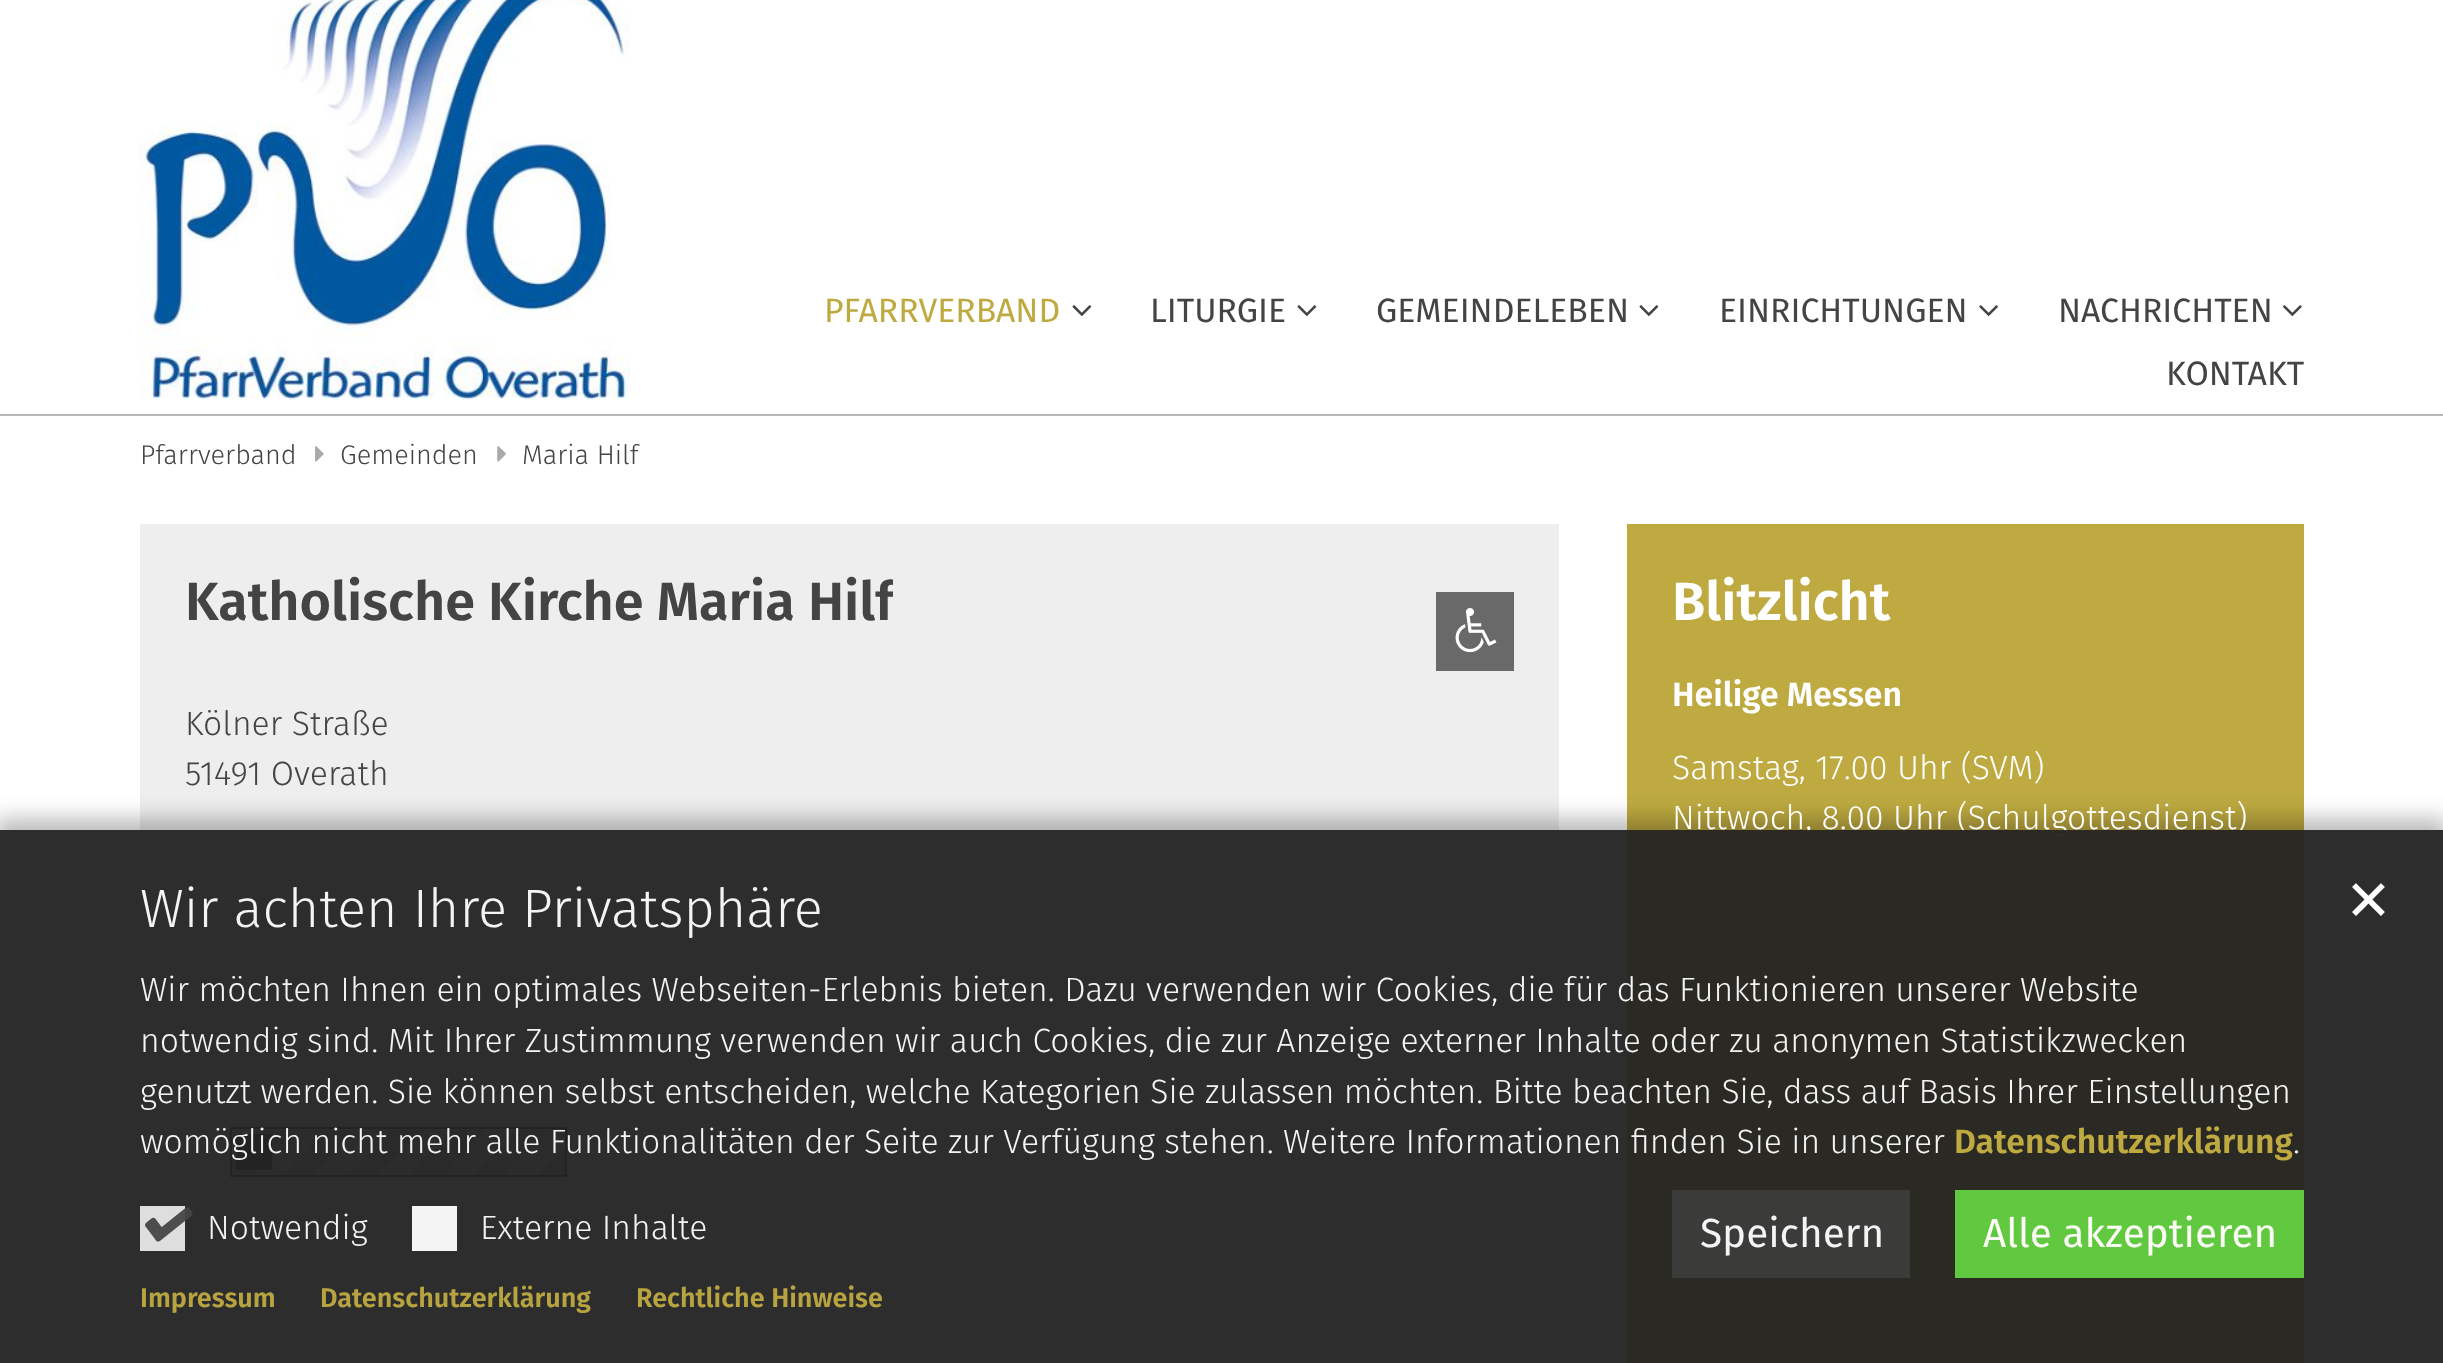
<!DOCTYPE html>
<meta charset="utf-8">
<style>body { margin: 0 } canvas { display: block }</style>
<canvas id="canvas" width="2443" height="1363"></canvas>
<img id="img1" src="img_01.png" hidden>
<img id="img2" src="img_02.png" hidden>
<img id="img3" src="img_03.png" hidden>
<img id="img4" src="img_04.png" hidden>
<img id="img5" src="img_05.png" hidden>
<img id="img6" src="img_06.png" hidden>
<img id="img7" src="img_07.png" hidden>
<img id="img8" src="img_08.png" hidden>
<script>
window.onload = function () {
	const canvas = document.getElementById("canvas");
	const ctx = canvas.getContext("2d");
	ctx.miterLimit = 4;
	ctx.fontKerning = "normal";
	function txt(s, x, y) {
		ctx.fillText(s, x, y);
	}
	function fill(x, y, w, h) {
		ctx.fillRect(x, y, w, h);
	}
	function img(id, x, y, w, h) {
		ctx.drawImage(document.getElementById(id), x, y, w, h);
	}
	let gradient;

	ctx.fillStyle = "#FFFFFF";
	fill(0, 0, 2443, 1363);
	img("img1", 139, 0, 491, 400);
	img("img2", 1072, 305, 20, 12);
	img("img2", 1297, 305, 20, 12);
	img("img2", 1639, 305, 20, 12);
	img("img3", 1979, 305, 19, 12);
	img("img4", 2283, 305, 19, 12);
	ctx.fillStyle = "#B7B7B7";
	fill(0, 414, 2443, 2);
	img("img5", 315, 446, 9, 16);
	img("img6", 497, 446, 9, 16);
	ctx.fillStyle = "#EEEEEE";
	fill(140, 524, 1419, 839);
	ctx.fillStyle = "#696969";
	fill(1436, 592, 78, 79);
	img("img7", 1455, 608, 42, 45);
	ctx.strokeStyle = "#444444";
	ctx.lineWidth = 2;
	ctx.strokeRect(231, 1128, 335, 48);
	gradient = ctx.createLinearGradient(304, 1058, 495, 1248);
	gradient.addColorStop(0, "#DDDDDD");
	gradient.addColorStop(0.08, "#DDDDDD");
	gradient.addColorStop(0.08, "#C7C7C7");
	gradient.addColorStop(0.17, "#C7C7C7");
	gradient.addColorStop(0.17, "#DDDDDD");
	gradient.addColorStop(0.25, "#DDDDDD");
	gradient.addColorStop(0.25, "#C7C7C7");
	gradient.addColorStop(0.33, "#C7C7C7");
	gradient.addColorStop(0.33, "#DDDDDD");
	gradient.addColorStop(0.42, "#DDDDDD");
	gradient.addColorStop(0.42, "#C7C7C7");
	gradient.addColorStop(0.5, "#C7C7C7");
	gradient.addColorStop(0.5, "#DDDDDD");
	gradient.addColorStop(0.58, "#DDDDDD");
	gradient.addColorStop(0.58, "#C7C7C7");
	gradient.addColorStop(0.67, "#C7C7C7");
	gradient.addColorStop(0.67, "#DDDDDD");
	gradient.addColorStop(0.75, "#DDDDDD");
	gradient.addColorStop(0.75, "#C7C7C7");
	gradient.addColorStop(0.83, "#C7C7C7");
	gradient.addColorStop(0.83, "#DDDDDD");
	gradient.addColorStop(0.92, "#DDDDDD");
	gradient.addColorStop(0.92, "#C7C7C7");
	gradient.addColorStop(1, "#C7C7C7");
	ctx.fillStyle = gradient;
	fill(232, 1130, 333, 45);
	ctx.fillStyle = "#444444";
	fill(236, 1134, 36, 36);
	ctx.fillStyle = "#BEAA41";
	fill(1627, 524, 677, 839);
	ctx.save();
	ctx.beginPath();
	ctx.moveTo(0, 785);
	ctx.lineTo(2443, 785);
	ctx.lineTo(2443, 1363);
	ctx.lineTo(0, 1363);
	ctx.closePath();
	ctx.moveTo(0, 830);
	ctx.lineTo(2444, 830);
	ctx.lineTo(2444, 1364);
	ctx.lineTo(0, 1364);
	ctx.closePath();
	ctx.clip("evenodd");
	ctx.fillStyle = "rgba(0, 0, 0, 0.28)";
	ctx.filter = "blur(11px)";
	ctx.beginPath();
	ctx.rect(-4, 819, 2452, 542);
	ctx.fill();
	ctx.filter = "none";
	ctx.restore();
	ctx.font = "33.75px Fira Sans";
	txt("PFARRVERBAND", 824, 322);
	ctx.fillStyle = "#444444";
	txt("LITURGIE", 1150, 322);
	txt("GEMEINDELEBEN", 1376, 322);
	txt("EINRICHTUNGEN", 1719, 322);
	txt("NACHRICHTEN", 2058, 322);
	txt("KONTAKT", 2166, 385);
	ctx.font = "300 27px Fira Sans";
	txt("Pfarrverband", 140, 464);
	txt("Gemeinden", 340, 464);
	txt("Maria Hilf", 522, 464);
	ctx.save();
	ctx.beginPath();
	ctx.rect(185, 569, 708, 68);
	ctx.clip();
	ctx.font = "600 54px Fira Sans";
	txt("Katholische Kirche Maria Hilf", 185, 620);
	ctx.restore();
	ctx.font = "300 33.75px Fira Sans";
	txt("Kölner Straße", 185, 735);
	txt("51491 Overath", 185, 785);
	ctx.font = "600 54px Fira Sans";
	ctx.fillStyle = "#FFFFFF";
	txt("Blitzlicht", 1672, 620);
	ctx.font = "600 33.75px Fira Sans";
	txt("Heilige Messen", 1672, 706);
	ctx.font = "300 33.75px Fira Sans";
	txt("Samstag, 17.00 Uhr (SVM)", 1672, 779);
	txt("Nittwoch, 8.00 Uhr (Schulgottesdienst)", 1672, 829);
	ctx.fillStyle = "rgba(34, 34, 34, 0.95)";
	fill(0, 830, 2443, 533);
	ctx.font = "300 54px Fira Sans";
	ctx.fillStyle = "#F4F4F4";
	txt("Wir achten Ihre Privatsphäre", 140, 927);
	ctx.font = "56px DejaVu Sans";
	ctx.fillStyle = "#FFFFFF";
	txt("✕", 2345, 920);
	ctx.font = "300 33.75px Fira Sans";
	ctx.fillStyle = "#F4F4F4";
	txt("Wir möchten Ihnen ein optimales Webseiten-Erlebnis bieten. Dazu verwenden wir Cookies, die für das Funktionieren unserer Website", 140, 1001);
	txt("notwendig sind. Mit Ihrer Zustimmung verwenden wir auch Cookies, die zur Anzeige externer Inhalte oder zu anonymen Statistikzwecken", 140, 1052);
	txt("genutzt werden. Sie können selbst entscheiden, welche Kategorien Sie zulassen möchten. Bitte beachten Sie, dass auf Basis Ihrer Einstellungen", 140, 1103);
	txt("womöglich nicht mehr alle Funktionalitäten der Seite zur Verfügung stehen. Weitere Informationen finden Sie in unserer", 140, 1153);
	ctx.font = "600 33.75px Fira Sans";
	ctx.fillStyle = "#BEAA41";
	txt("Datenschutzerklärung", 1954, 1153);
	ctx.font = "300 33.75px Fira Sans";
	ctx.fillStyle = "#FCFBF6";
	txt(".", 2293, 1153);
	ctx.fillStyle = "#DEDEDE";
	fill(140, 1206, 45, 45);
	img("img8", 145, 1207, 48, 35);
	ctx.fillStyle = "#F4F4F4";
	txt("Notwendig", 207, 1239);
	ctx.fillStyle = "rgba(255, 255, 255, 0.95)";
	fill(412, 1206, 45, 45);
	ctx.fillStyle = "#F4F4F4";
	txt("Externe Inhalte", 480, 1239);
	ctx.fillStyle = "rgba(60, 60, 60, 0.95)";
	fill(1672, 1190, 238, 88);
	ctx.font = "40.5px Fira Sans";
	ctx.fillStyle = "#F4F4F4";
	txt("Speichern", 1700, 1247);
	ctx.fillStyle = "rgba(100, 210, 65, 0.95)";
	fill(1955, 1190, 349, 88);
	ctx.fillStyle = "#FCFBF6";
	txt("Alle akzeptieren", 1983, 1247);
	ctx.font = "600 27px Fira Sans";
	ctx.fillStyle = "#B7A440";
	txt("Impressum", 140, 1307);
	txt("Datenschutzerklärung", 320, 1307);
	txt("Rechtliche Hinweise", 636, 1307);
};
</script>
